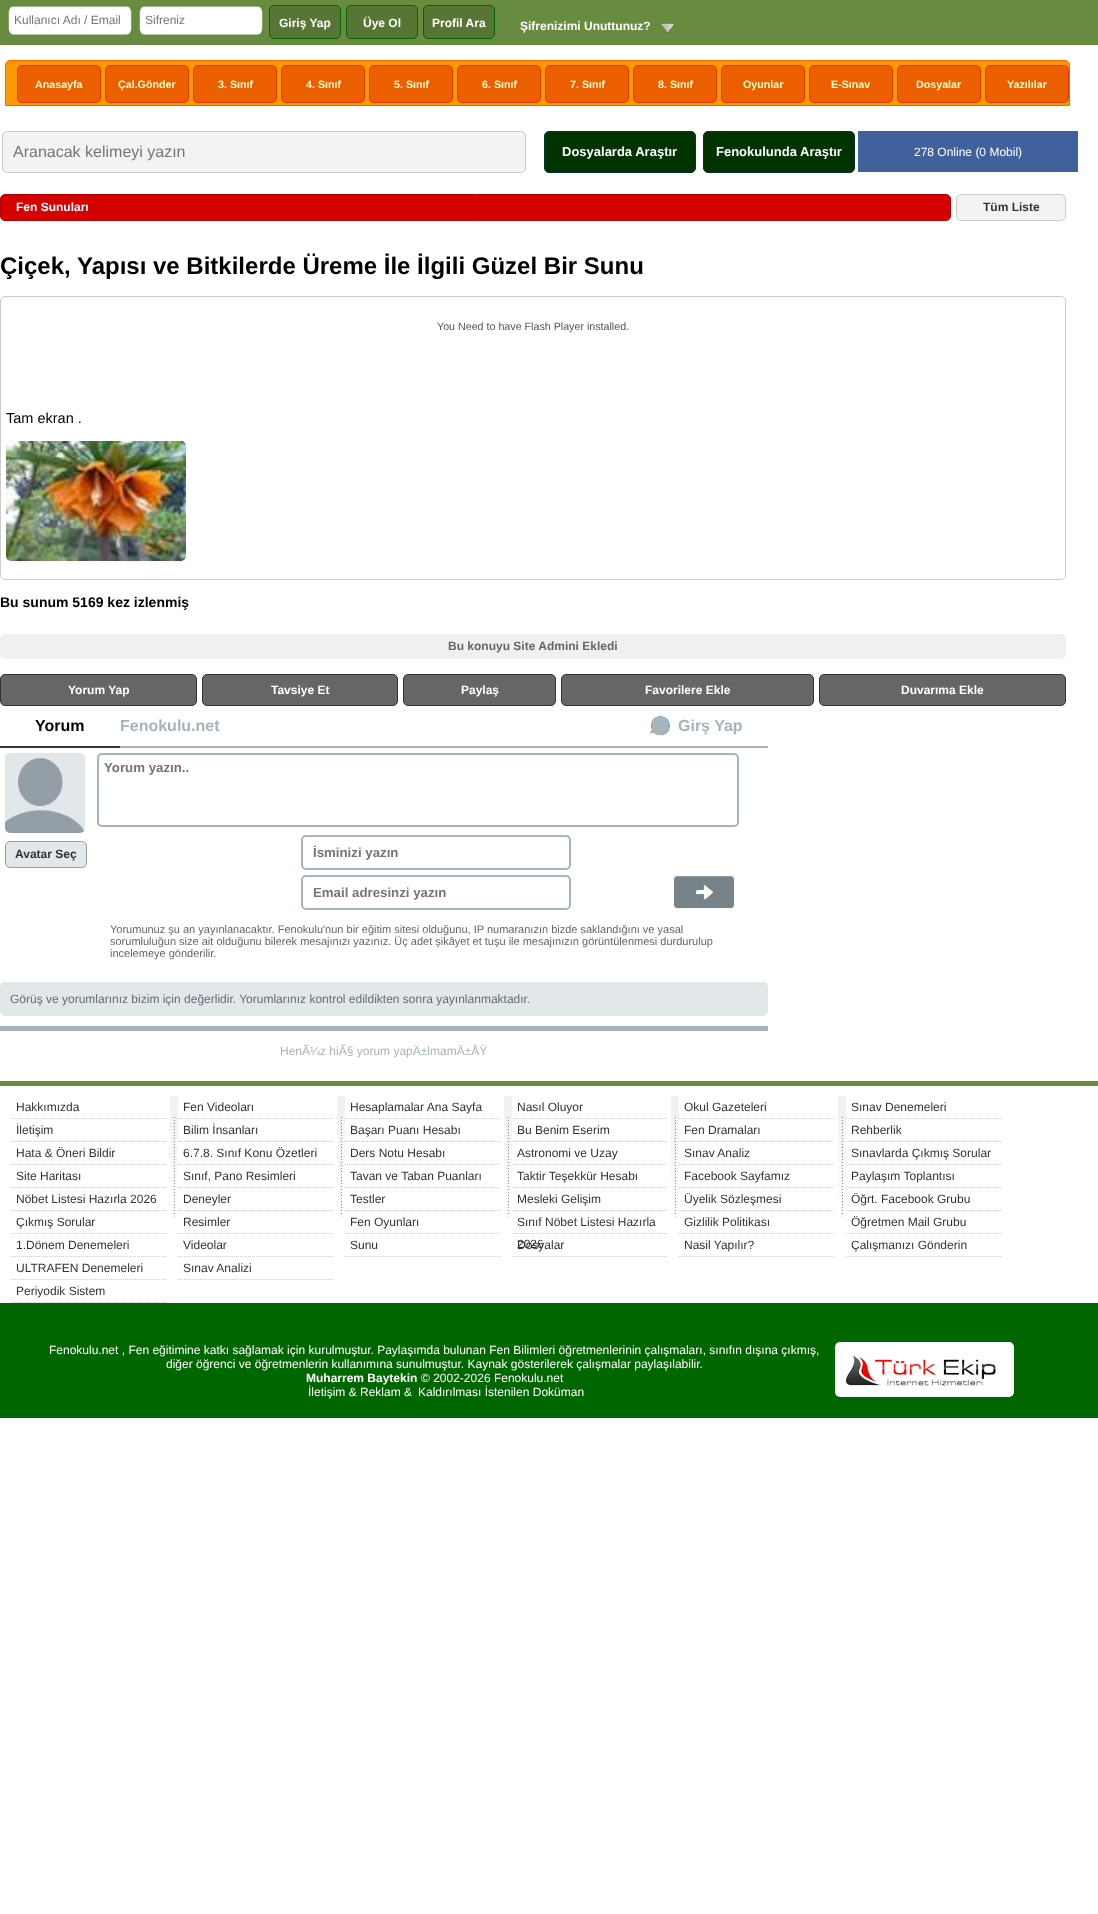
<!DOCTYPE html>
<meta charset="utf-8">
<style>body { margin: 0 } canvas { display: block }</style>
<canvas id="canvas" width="1098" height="1914"></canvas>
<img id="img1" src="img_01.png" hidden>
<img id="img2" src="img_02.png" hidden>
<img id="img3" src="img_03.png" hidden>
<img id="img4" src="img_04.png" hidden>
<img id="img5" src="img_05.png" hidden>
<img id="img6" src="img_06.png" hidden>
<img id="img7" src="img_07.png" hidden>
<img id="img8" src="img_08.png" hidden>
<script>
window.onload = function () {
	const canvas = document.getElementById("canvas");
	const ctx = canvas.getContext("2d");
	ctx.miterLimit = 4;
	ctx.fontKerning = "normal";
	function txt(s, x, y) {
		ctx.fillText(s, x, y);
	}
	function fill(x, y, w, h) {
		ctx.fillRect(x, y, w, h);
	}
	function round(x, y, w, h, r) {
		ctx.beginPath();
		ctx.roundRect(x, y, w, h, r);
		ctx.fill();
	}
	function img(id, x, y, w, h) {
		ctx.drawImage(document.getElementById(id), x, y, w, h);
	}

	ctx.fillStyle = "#FFFFFF";
	fill(0, 0, 1098, 1914);
	ctx.fillStyle = "#678B3F";
	fill(0, 0, 1098, 45);
	img("img1", 8, 6, 124, 29);
	img("img1", 139, 6, 124, 29);
	ctx.fillStyle = "#577535";
	ctx.beginPath();
	ctx.roundRect(269.5, 5.5, 71, 33, 4.5);
	ctx.fill();
	ctx.strokeStyle = "#006600";
	ctx.stroke();
	ctx.beginPath();
	ctx.roundRect(346.5, 5.5, 71, 33, 4.5);
	ctx.fill();
	ctx.stroke();
	ctx.beginPath();
	ctx.roundRect(423.5, 5.5, 71, 33, 4.5);
	ctx.fill();
	ctx.stroke();
	img("img2", 661, 23, 13, 11);
	ctx.fillStyle = "#FF9900";
	ctx.beginPath();
	ctx.roundRect(5.5, 60.5, 1064, 45, [4.5, 4.5, 0, 0]);
	ctx.fill();
	ctx.strokeStyle = "#FF6600";
	ctx.stroke();
	ctx.fillStyle = "#EC5F00";
	ctx.beginPath();
	ctx.roundRect(17.5, 65.5, 83, 37, 4.5);
	ctx.fill();
	ctx.strokeStyle = "#DF3800";
	ctx.stroke();
	ctx.beginPath();
	ctx.roundRect(105.5, 65.5, 83, 37, 4.5);
	ctx.fill();
	ctx.stroke();
	ctx.beginPath();
	ctx.roundRect(193.5, 65.5, 83, 37, 4.5);
	ctx.fill();
	ctx.stroke();
	ctx.beginPath();
	ctx.roundRect(281.5, 65.5, 83, 37, 4.5);
	ctx.fill();
	ctx.stroke();
	ctx.beginPath();
	ctx.roundRect(369.5, 65.5, 83, 37, 4.5);
	ctx.fill();
	ctx.stroke();
	ctx.beginPath();
	ctx.roundRect(457.5, 65.5, 83, 37, 4.5);
	ctx.fill();
	ctx.stroke();
	ctx.beginPath();
	ctx.roundRect(545.5, 65.5, 83, 37, 4.5);
	ctx.fill();
	ctx.stroke();
	ctx.beginPath();
	ctx.roundRect(633.5, 65.5, 83, 37, 4.5);
	ctx.fill();
	ctx.stroke();
	ctx.beginPath();
	ctx.roundRect(721.5, 65.5, 83, 37, 4.5);
	ctx.fill();
	ctx.stroke();
	ctx.beginPath();
	ctx.roundRect(809.5, 65.5, 83, 37, 4.5);
	ctx.fill();
	ctx.stroke();
	ctx.beginPath();
	ctx.roundRect(897.5, 65.5, 83, 37, 4.5);
	ctx.fill();
	ctx.stroke();
	ctx.beginPath();
	ctx.roundRect(985.5, 65.5, 83, 37, 4.5);
	ctx.fill();
	ctx.stroke();
	ctx.fillStyle = "#F3F3F3";
	ctx.beginPath();
	ctx.roundRect(2.5, 131.5, 523, 41, 4.5);
	ctx.fill();
	ctx.strokeStyle = "#CCCCCC";
	ctx.stroke();
	ctx.fillStyle = "#003300";
	ctx.beginPath();
	ctx.roundRect(544.5, 131.5, 151, 41, 4.5);
	ctx.fill();
	ctx.strokeStyle = "#003333";
	ctx.stroke();
	ctx.beginPath();
	ctx.roundRect(703.5, 131.5, 151, 41, 4.5);
	ctx.fill();
	ctx.stroke();
	ctx.fillStyle = "#41619C";
	fill(858, 131, 220, 41);
	ctx.fillStyle = "#D50000";
	ctx.beginPath();
	ctx.roundRect(0.5, 194.5, 950, 26, 4.5);
	ctx.fill();
	ctx.strokeStyle = "#B30000";
	ctx.stroke();
	ctx.fillStyle = "#F3F3F3";
	ctx.beginPath();
	ctx.roundRect(956.5, 194.5, 109, 26, 4.5);
	ctx.fill();
	ctx.strokeStyle = "#CCCCCC";
	ctx.stroke();
	ctx.beginPath();
	ctx.roundRect(0.5, 296.5, 1065, 283, 4.5);
	ctx.stroke();
	img("img3", 6, 441, 180, 120);
	ctx.fillStyle = "#F0F0F0";
	round(0, 634, 1066, 25, 5);
	ctx.fillStyle = "#666666";
	ctx.beginPath();
	ctx.roundRect(0.5, 674.5, 196, 31, 4.5);
	ctx.fill();
	ctx.strokeStyle = "#333333";
	ctx.stroke();
	ctx.beginPath();
	ctx.roundRect(202.5, 674.5, 195, 31, 4.5);
	ctx.fill();
	ctx.stroke();
	ctx.beginPath();
	ctx.roundRect(403.5, 674.5, 152, 31, 4.5);
	ctx.fill();
	ctx.stroke();
	ctx.beginPath();
	ctx.roundRect(561.5, 674.5, 252, 31, 4.5);
	ctx.fill();
	ctx.stroke();
	ctx.beginPath();
	ctx.roundRect(819.5, 674.5, 246, 31, 4.5);
	ctx.fill();
	ctx.stroke();
	ctx.fillStyle = "#333333";
	fill(0, 746, 120, 2);
	ctx.fillStyle = "#A6B4BB";
	fill(120, 746, 648, 2);
	img("img4", 650, 715, 20, 21);
	img("img5", 5, 753, 80, 80);
	ctx.fillStyle = "#E2E7EA";
	ctx.beginPath();
	ctx.roundRect(5.5, 841.5, 81, 26, 4.5);
	ctx.fill();
	ctx.strokeStyle = "#939EA7";
	ctx.stroke();
	ctx.beginPath();
	ctx.roundRect(98, 754, 640, 72, 4);
	ctx.strokeStyle = "#A6B4BB";
	ctx.lineWidth = 2;
	ctx.stroke();
	ctx.beginPath();
	ctx.roundRect(302, 836, 268, 33, 4);
	ctx.stroke();
	ctx.beginPath();
	ctx.roundRect(302, 876, 268, 33, 4);
	ctx.stroke();
	img("img6", 673, 876, 61, 33);
	round(0, 982, 768, 34, 5);
	ctx.fillStyle = "#A6B4BB";
	fill(0, 1026, 768, 5);
	ctx.fillStyle = "#678B3F";
	fill(0, 1081, 1098, 5);
	img("img7", 170, 1096, 8, 121);
	ctx.beginPath();
	ctx.moveTo(11, 1118.5);
	ctx.lineTo(166, 1118.5);
	ctx.strokeStyle = "#CCCCCC";
	ctx.lineWidth = 1;
	ctx.setLineDash([1, 1]);
	ctx.stroke();
	ctx.beginPath();
	ctx.moveTo(11, 1141.5);
	ctx.lineTo(166, 1141.5);
	ctx.stroke();
	ctx.beginPath();
	ctx.moveTo(11, 1164.5);
	ctx.lineTo(166, 1164.5);
	ctx.stroke();
	ctx.beginPath();
	ctx.moveTo(11, 1187.5);
	ctx.lineTo(166, 1187.5);
	ctx.stroke();
	ctx.beginPath();
	ctx.moveTo(11, 1210.5);
	ctx.lineTo(166, 1210.5);
	ctx.stroke();
	ctx.beginPath();
	ctx.moveTo(11, 1233.5);
	ctx.lineTo(166, 1233.5);
	ctx.stroke();
	ctx.beginPath();
	ctx.moveTo(11, 1256.5);
	ctx.lineTo(166, 1256.5);
	ctx.stroke();
	ctx.beginPath();
	ctx.moveTo(11, 1279.5);
	ctx.lineTo(166, 1279.5);
	ctx.stroke();
	ctx.beginPath();
	ctx.moveTo(11, 1302.5);
	ctx.lineTo(166, 1302.5);
	ctx.stroke();
	img("img7", 337, 1096, 8, 121);
	ctx.beginPath();
	ctx.moveTo(178, 1118.5);
	ctx.lineTo(333, 1118.5);
	ctx.stroke();
	ctx.beginPath();
	ctx.moveTo(178, 1141.5);
	ctx.lineTo(333, 1141.5);
	ctx.stroke();
	ctx.beginPath();
	ctx.moveTo(178, 1164.5);
	ctx.lineTo(333, 1164.5);
	ctx.stroke();
	ctx.beginPath();
	ctx.moveTo(178, 1187.5);
	ctx.lineTo(333, 1187.5);
	ctx.stroke();
	ctx.beginPath();
	ctx.moveTo(178, 1210.5);
	ctx.lineTo(333, 1210.5);
	ctx.stroke();
	ctx.beginPath();
	ctx.moveTo(178, 1233.5);
	ctx.lineTo(333, 1233.5);
	ctx.stroke();
	ctx.beginPath();
	ctx.moveTo(178, 1256.5);
	ctx.lineTo(333, 1256.5);
	ctx.stroke();
	ctx.beginPath();
	ctx.moveTo(178, 1279.5);
	ctx.lineTo(333, 1279.5);
	ctx.stroke();
	img("img7", 504, 1096, 8, 121);
	ctx.beginPath();
	ctx.moveTo(345, 1118.5);
	ctx.lineTo(500, 1118.5);
	ctx.stroke();
	ctx.beginPath();
	ctx.moveTo(345, 1141.5);
	ctx.lineTo(500, 1141.5);
	ctx.stroke();
	ctx.beginPath();
	ctx.moveTo(345, 1164.5);
	ctx.lineTo(500, 1164.5);
	ctx.stroke();
	ctx.beginPath();
	ctx.moveTo(345, 1187.5);
	ctx.lineTo(500, 1187.5);
	ctx.stroke();
	ctx.beginPath();
	ctx.moveTo(345, 1210.5);
	ctx.lineTo(500, 1210.5);
	ctx.stroke();
	ctx.beginPath();
	ctx.moveTo(345, 1233.5);
	ctx.lineTo(500, 1233.5);
	ctx.stroke();
	ctx.beginPath();
	ctx.moveTo(345, 1256.5);
	ctx.lineTo(500, 1256.5);
	ctx.stroke();
	img("img7", 671, 1096, 8, 121);
	ctx.beginPath();
	ctx.moveTo(512, 1118.5);
	ctx.lineTo(667, 1118.5);
	ctx.stroke();
	ctx.beginPath();
	ctx.moveTo(512, 1141.5);
	ctx.lineTo(667, 1141.5);
	ctx.stroke();
	ctx.beginPath();
	ctx.moveTo(512, 1164.5);
	ctx.lineTo(667, 1164.5);
	ctx.stroke();
	ctx.beginPath();
	ctx.moveTo(512, 1187.5);
	ctx.lineTo(667, 1187.5);
	ctx.stroke();
	ctx.beginPath();
	ctx.moveTo(512, 1210.5);
	ctx.lineTo(667, 1210.5);
	ctx.stroke();
	ctx.beginPath();
	ctx.moveTo(512, 1233.5);
	ctx.lineTo(667, 1233.5);
	ctx.stroke();
	ctx.beginPath();
	ctx.moveTo(512, 1256.5);
	ctx.lineTo(667, 1256.5);
	ctx.stroke();
	img("img7", 838, 1096, 8, 121);
	ctx.beginPath();
	ctx.moveTo(679, 1118.5);
	ctx.lineTo(834, 1118.5);
	ctx.stroke();
	ctx.beginPath();
	ctx.moveTo(679, 1141.5);
	ctx.lineTo(834, 1141.5);
	ctx.stroke();
	ctx.beginPath();
	ctx.moveTo(679, 1164.5);
	ctx.lineTo(834, 1164.5);
	ctx.stroke();
	ctx.beginPath();
	ctx.moveTo(679, 1187.5);
	ctx.lineTo(834, 1187.5);
	ctx.stroke();
	ctx.beginPath();
	ctx.moveTo(679, 1210.5);
	ctx.lineTo(834, 1210.5);
	ctx.stroke();
	ctx.beginPath();
	ctx.moveTo(679, 1233.5);
	ctx.lineTo(834, 1233.5);
	ctx.stroke();
	ctx.beginPath();
	ctx.moveTo(679, 1256.5);
	ctx.lineTo(834, 1256.5);
	ctx.stroke();
	ctx.beginPath();
	ctx.moveTo(846, 1118.5);
	ctx.lineTo(1001, 1118.5);
	ctx.stroke();
	ctx.beginPath();
	ctx.moveTo(846, 1141.5);
	ctx.lineTo(1001, 1141.5);
	ctx.stroke();
	ctx.beginPath();
	ctx.moveTo(846, 1164.5);
	ctx.lineTo(1001, 1164.5);
	ctx.stroke();
	ctx.beginPath();
	ctx.moveTo(846, 1187.5);
	ctx.lineTo(1001, 1187.5);
	ctx.stroke();
	ctx.beginPath();
	ctx.moveTo(846, 1210.5);
	ctx.lineTo(1001, 1210.5);
	ctx.stroke();
	ctx.beginPath();
	ctx.moveTo(846, 1233.5);
	ctx.lineTo(1001, 1233.5);
	ctx.stroke();
	ctx.beginPath();
	ctx.moveTo(846, 1256.5);
	ctx.lineTo(1001, 1256.5);
	ctx.stroke();
	ctx.fillStyle = "#006600";
	fill(0, 1303, 1098, 115);
	img("img8", 835, 1342, 179, 55);
	ctx.font = "12px Liberation Sans";
	ctx.fillStyle = "#757575";
	txt("Kullanıcı Adı / Email", 14, 24);
	txt("Sifreniz", 145, 24);
	ctx.font = "bold 12px Liberation Sans";
	ctx.fillStyle = "#FFFFFF";
	txt("Giriş Yap", 279, 27);
	txt("Üye Ol", 363, 27);
	txt("Profil Ara", 432, 27);
	txt("Şifrenizimi Unuttunuz?", 520, 30);
	ctx.font = "bold 10.7px Liberation Sans";
	ctx.fillStyle = "#FFFFCC";
	txt("Anasayfa", 35, 88);
	txt("Çal.Gönder", 118, 88);
	txt("3. Sınıf", 218, 88);
	txt("4. Sınıf", 306, 88);
	txt("5. Sınıf", 394, 88);
	txt("6. Sınıf", 482, 88);
	txt("7. Sınıf", 570, 88);
	txt("8. Sınıf", 658, 88);
	txt("Oyunlar", 743, 88);
	txt("E-Sınav", 831, 88);
	txt("Dosyalar", 916, 88);
	txt("Yazılılar", 1007, 88);
	ctx.font = "16px Liberation Sans";
	ctx.fillStyle = "#757575";
	txt("Aranacak kelimeyi yazın", 13, 157);
	ctx.font = "bold 13px Liberation Sans";
	ctx.fillStyle = "#FFFFFF";
	txt("Dosyalarda Araştır", 562, 156);
	txt("Fenokulunda Araştır", 716, 156);
	ctx.font = "12px Liberation Sans";
	txt("278 Online (0 Mobil)", 914, 156);
	ctx.font = "bold 12px Liberation Sans";
	txt("Fen Sunuları", 16, 211);
	ctx.fillStyle = "#333333";
	txt("Tüm Liste", 983, 211);
	ctx.font = "bold 24px Liberation Sans";
	ctx.fillStyle = "#000000";
	txt("Çiçek, Yapısı ve Bitkilerde Üreme İle İlgili Güzel Bir Sunu", 0, 274);
	ctx.font = "10.7px Liberation Sans";
	ctx.fillStyle = "#555555";
	txt("You Need to have Flash Player installed.", 437, 330);
	ctx.font = "14.5px Liberation Sans";
	ctx.fillStyle = "#000000";
	txt("Tam ekran .", 6, 423);
	ctx.font = "bold 14px Liberation Sans";
	txt("Bu sunum 5169 kez izlenmiş", 0, 607);
	ctx.font = "bold 12px Liberation Sans";
	ctx.fillStyle = "#666666";
	txt("Bu konuyu Site Admini Ekledi", 448, 650);
	ctx.fillStyle = "#FFFFFF";
	txt("Yorum Yap", 68, 694);
	txt("Tavsiye Et", 271, 694);
	txt("Paylaş", 461, 694);
	txt("Favorilere Ekle", 645, 694);
	txt("Duvarıma Ekle", 901, 694);
	ctx.font = "bold 16px Liberation Sans";
	ctx.fillStyle = "#000000";
	txt("Yorum", 35, 731);
	ctx.fillStyle = "#A6B4BB";
	txt("Fenokulu.net", 120, 731);
	txt("Girş Yap", 678, 731);
	ctx.font = "bold 12px Liberation Sans";
	ctx.fillStyle = "#333333";
	txt("Avatar Seç", 15, 858);
	ctx.font = "bold 13.25px Liberation Sans";
	ctx.fillStyle = "#757575";
	txt("Yorum yazın..", 104, 772);
	txt("İsminizi yazın", 313, 857);
	txt("Email adresinzi yazın", 313, 897);
	ctx.font = "11px Liberation Sans";
	ctx.fillStyle = "#666666";
	txt("Yorumunuz şu an yayınlanacaktır. Fenokulu'nun bir eğitim sitesi olduğunu, IP numaranızın bizde saklandığını ve yasal", 110, 933);
	txt("sorumluluğun size ait olduğunu bilerek mesajınızı yazınız. Üç adet şikâyet et tuşu ile mesajınızın görüntülenmesi durdurulup", 110, 945);
	txt("incelemeye gönderilir.", 110, 957);
	ctx.font = "12px Liberation Sans";
	ctx.fillStyle = "#616C76";
	txt("Görüş ve yorumlarınız bizim için değerlidir. Yorumlarınız kontrol edildikten sonra yayınlanmaktadır.", 10, 1003);
	ctx.fillStyle = "#A6B4BB";
	txt("HenÃ¼z hiÃ§ yorum yapÄ±lmamÄ±ÅŸ", 280, 1055);
	ctx.fillStyle = "#333333";
	txt("Hakkımızda", 16, 1111);
	txt("İletişim", 16, 1134);
	txt("Hata & Öneri Bildir", 16, 1157);
	txt("Site Haritası", 16, 1180);
	txt("Nöbet Listesi Hazırla 2026", 16, 1203);
	txt("Çıkmış Sorular", 16, 1226);
	txt("1.Dönem Denemeleri", 16, 1249);
	txt("ULTRAFEN Denemeleri", 16, 1272);
	txt("Periyodik Sistem", 16, 1295);
	txt("Fen Videoları", 183, 1111);
	txt("Bilim İnsanları", 183, 1134);
	txt("6.7.8. Sınıf Konu Özetleri", 183, 1157);
	txt("Sınıf, Pano Resimleri", 183, 1180);
	txt("Deneyler", 183, 1203);
	txt("Resimler", 183, 1226);
	txt("Videolar", 183, 1249);
	txt("Sınav Analizi", 183, 1272);
	txt("Hesaplamalar Ana Sayfa", 350, 1111);
	txt("Başarı Puanı Hesabı", 350, 1134);
	txt("Ders Notu Hesabı", 350, 1157);
	txt("Tavan ve Taban Puanları", 350, 1180);
	txt("Testler", 350, 1203);
	txt("Fen Oyunları", 350, 1226);
	txt("Sunu", 350, 1249);
	txt("Nasıl Oluyor", 517, 1111);
	txt("Bu Benim Eserim", 517, 1134);
	txt("Astronomi ve Uzay", 517, 1157);
	txt("Taktir Teşekkür Hesabı", 517, 1180);
	txt("Mesleki Gelişim", 517, 1203);
	txt("Sınıf Nöbet Listesi Hazırla", 517, 1226);
	txt("2026", 517, 1248);
	txt("Dosyalar", 517, 1249);
	txt("Okul Gazeteleri", 684, 1111);
	txt("Fen Dramaları", 684, 1134);
	txt("Sınav Analiz", 684, 1157);
	txt("Facebook Sayfamız", 684, 1180);
	txt("Üyelik Sözleşmesi", 684, 1203);
	txt("Gizlilik Politikası", 684, 1226);
	txt("Nasil Yapılır?", 684, 1249);
	txt("Sınav Denemeleri", 851, 1111);
	txt("Rehberlik", 851, 1134);
	txt("Sınavlarda Çıkmış Sorular", 851, 1157);
	txt("Paylaşım Toplantısı", 851, 1180);
	txt("Öğrt. Facebook Grubu", 851, 1203);
	txt("Öğretmen Mail Grubu", 851, 1226);
	txt("Çalışmanızı Gönderin", 851, 1249);
	ctx.fillStyle = "#FFFFFF";
	txt("Fenokulu.net , Fen eğitimine katkı sağlamak için kurulmuştur. Paylaşımda bulunan Fen Bilimleri öğretmenlerinin çalışmaları, sınıfın dışına çıkmış,", 49, 1354);
	txt("diğer öğrenci ve öğretmenlerin kullanımına sunulmuştur. Kaynak gösterilerek çalışmalar paylaşılabilir.", 166, 1368);
	ctx.font = "bold 12px Liberation Sans";
	txt("Muharrem Baytekin", 306, 1382);
	ctx.font = "12px Liberation Sans";
	txt("© 2002-2026 Fenokulu.net", 421, 1382);
	txt("İletişim & Reklam &", 308, 1396);
	txt("Kaldırılması İstenilen Doküman", 418, 1396);
};
</script>
